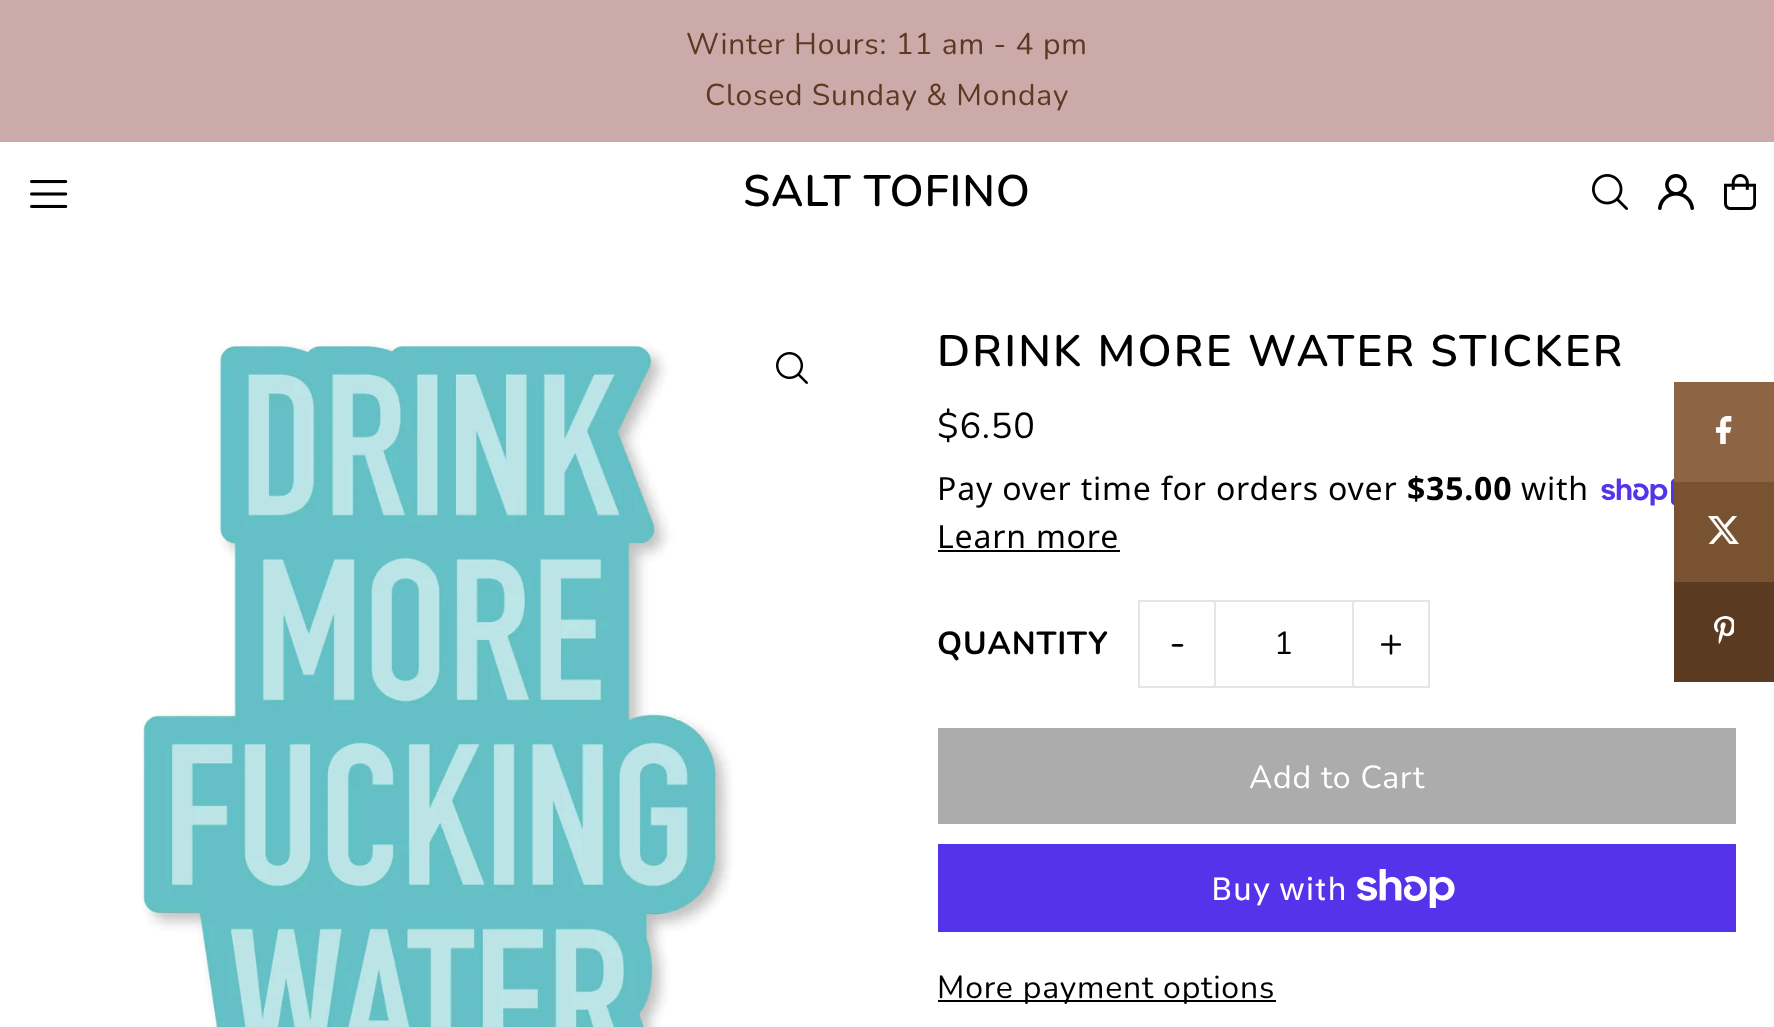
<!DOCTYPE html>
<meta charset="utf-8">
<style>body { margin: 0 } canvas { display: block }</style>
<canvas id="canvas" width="1774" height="1027"></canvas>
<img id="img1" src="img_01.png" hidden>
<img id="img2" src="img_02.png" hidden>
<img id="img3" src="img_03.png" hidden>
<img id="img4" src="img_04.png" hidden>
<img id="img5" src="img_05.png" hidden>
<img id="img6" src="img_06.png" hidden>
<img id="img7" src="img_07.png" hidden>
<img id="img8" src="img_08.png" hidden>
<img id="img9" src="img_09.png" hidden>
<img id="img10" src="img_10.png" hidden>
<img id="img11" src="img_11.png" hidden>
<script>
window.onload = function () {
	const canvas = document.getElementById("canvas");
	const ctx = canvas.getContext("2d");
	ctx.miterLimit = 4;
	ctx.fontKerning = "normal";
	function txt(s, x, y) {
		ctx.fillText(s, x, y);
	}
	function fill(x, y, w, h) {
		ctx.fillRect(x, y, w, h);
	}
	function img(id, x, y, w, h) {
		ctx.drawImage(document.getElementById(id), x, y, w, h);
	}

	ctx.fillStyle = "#FFFFFF";
	fill(0, 0, 1774, 1027);
	ctx.fillStyle = "#CCAAAA";
	fill(0, 0, 1774, 142);
	img("img1", 30, 180, 38, 28);
	img("img2", 1592, 174, 36, 36);
	img("img3", 1658, 174, 36, 36);
	img("img4", 1724, 174, 32, 36);
	img("img5", 141, 341, 592, 686);
	img("img6", 776, 352, 32, 32);
	img("img7", 1601, 478, 73, 28);
	ctx.fillStyle = "#000000";
	fill(938, 550, 182, 2);
	ctx.fillStyle = "#E5E5E5";
	fill(1138, 600, 76, 2);
	fill(1138, 686, 76, 2);
	fill(1138, 600, 2, 88);
	ctx.strokeStyle = "#E5E5E5";
	ctx.lineWidth = 2;
	ctx.strokeRect(1215, 601, 138, 86);
	fill(1354, 600, 76, 2);
	fill(1428, 600, 2, 88);
	fill(1354, 686, 76, 2);
	ctx.fillStyle = "#ACACAC";
	fill(938, 728, 798, 96);
	ctx.fillStyle = "#5433EB";
	fill(938, 844, 798, 88);
	img("img8", 1357, 869, 98, 39);
	ctx.fillStyle = "#000000";
	fill(938, 1000, 338, 2);
	ctx.fillStyle = "#8D6544";
	fill(1674, 382, 100, 100);
	img("img9", 1716, 416, 16, 28);
	ctx.fillStyle = "#795232";
	fill(1674, 482, 100, 100);
	img("img10", 1708, 516, 31, 28);
	ctx.fillStyle = "#5A3B21";
	fill(1674, 582, 100, 100);
	img("img11", 1714, 616, 20, 28);
	ctx.letterSpacing = "0.8px";
	ctx.font = "30px Nunito";
	txt("Winter Hours: 11 am - 4 pm", 686, 54);
	txt("Closed Sunday & Monday", 705, 105);
	ctx.font = "600 44px Nunito";
	ctx.fillStyle = "#000000";
	txt("SALT TOFINO", 743, 206);
	ctx.letterSpacing = "2.2px";
	txt("DRINK MORE WATER STICKER", 937, 366);
	ctx.letterSpacing = "0.8px";
	ctx.font = "36px Nunito";
	txt("$6.50", 937, 438);
	ctx.font = "32px Noto Sans";
	txt("Pay over time for orders over", 937, 500);
	ctx.font = "bold 32px Noto Sans";
	txt("$35.00", 1407, 500);
	ctx.font = "32px Noto Sans";
	txt("with", 1521, 500);
	txt("Learn more", 937, 548);
	ctx.font = "bold 32px Nunito";
	txt("QUANTITY", 937, 654);
	ctx.letterSpacing = "1px";
	ctx.font = "40px Nunito";
	txt("-", 1169, 656);
	ctx.letterSpacing = "0.8px";
	ctx.font = "32px Nunito";
	txt("1", 1274, 654);
	ctx.letterSpacing = "1px";
	ctx.font = "40px Nunito";
	txt("+", 1379, 656);
	ctx.letterSpacing = "0.8px";
	ctx.font = "32px Nunito";
	ctx.fillStyle = "#FFFFFF";
	txt("Add to Cart", 1249, 788);
	ctx.font = "32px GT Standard";
	txt("Buy with", 1211, 900);
	ctx.font = "32px Nunito";
	ctx.fillStyle = "#000000";
	txt("More payment options", 937, 998);
};
</script>
